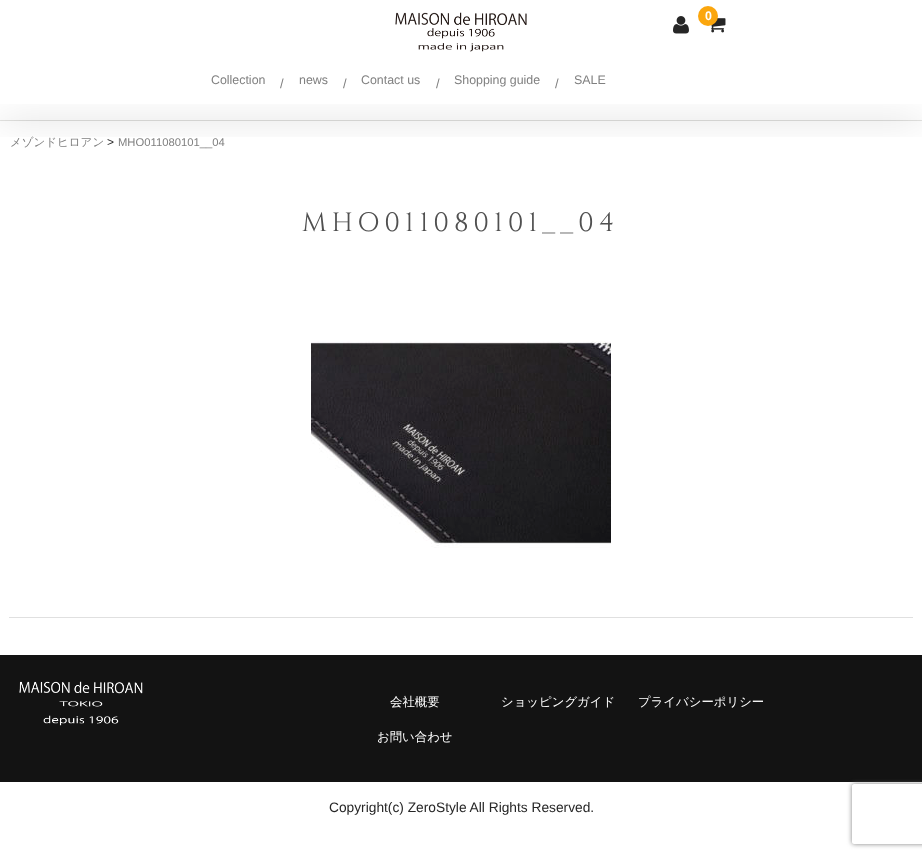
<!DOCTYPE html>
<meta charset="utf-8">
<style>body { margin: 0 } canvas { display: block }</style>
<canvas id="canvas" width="922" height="858"></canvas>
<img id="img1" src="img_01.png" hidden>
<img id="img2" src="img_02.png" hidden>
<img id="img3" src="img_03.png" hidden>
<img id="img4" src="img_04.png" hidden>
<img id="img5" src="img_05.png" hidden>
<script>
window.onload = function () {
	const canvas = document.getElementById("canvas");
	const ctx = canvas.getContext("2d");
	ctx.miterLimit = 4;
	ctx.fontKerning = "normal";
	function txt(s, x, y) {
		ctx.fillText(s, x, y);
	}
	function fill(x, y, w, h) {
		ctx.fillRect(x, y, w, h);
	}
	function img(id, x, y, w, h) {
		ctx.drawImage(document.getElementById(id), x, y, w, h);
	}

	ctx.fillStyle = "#FFFFFF";
	fill(0, 0, 922, 858);
	ctx.fillStyle = "#EBEBE9";
	fill(0, 120, 922, 1);
	ctx.save();
	ctx.beginPath();
	ctx.rect(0, 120, 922, 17);
	ctx.clip();
	ctx.fillStyle = "rgba(0, 0, 0, 0.1)";
	ctx.filter = "blur(20px)";
	ctx.beginPath();
	ctx.rect(0, 0, 922, 120);
	ctx.fill();
	ctx.filter = "none";
	ctx.restore();
	img("img1", 395, 12, 132, 40);
	img("img2", 673, 16, 16, 18);
	img("img3", 711, 18, 15, 15);
	ctx.fillStyle = "#FBA60D";
	ctx.beginPath();
	ctx.arc(708, 16, 10, 0, Math.PI * 2);
	ctx.fill();
	ctx.save();
	ctx.beginPath();
	ctx.rect(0, 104, 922, 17);
	ctx.clip();
	ctx.fillStyle = "rgba(0, 0, 0, 0.1)";
	ctx.filter = "blur(20px)";
	ctx.beginPath();
	ctx.rect(0, 121, 922, 534);
	ctx.fill();
	ctx.filter = "none";
	ctx.restore();
	img("img4", 311, 341, 300, 207);
	ctx.fillStyle = "#E0E0E0";
	fill(9, 617, 904, 1);
	ctx.fillStyle = "#131313";
	fill(0, 655, 922, 127);
	img("img5", 19, 681, 124, 45);
	ctx.save();
	ctx.beginPath();
	ctx.moveTo(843, 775);
	ctx.lineTo(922, 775);
	ctx.lineTo(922, 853);
	ctx.lineTo(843, 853);
	ctx.closePath();
	ctx.moveTo(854, 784);
	ctx.lineTo(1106, 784);
	ctx.bezierCurveTo(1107, 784, 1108, 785, 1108, 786);
	ctx.lineTo(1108, 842);
	ctx.bezierCurveTo(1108, 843, 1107, 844, 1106, 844);
	ctx.lineTo(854, 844);
	ctx.bezierCurveTo(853, 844, 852, 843, 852, 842);
	ctx.lineTo(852, 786);
	ctx.bezierCurveTo(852, 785, 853, 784, 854, 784);
	ctx.closePath();
	ctx.clip("evenodd");
	ctx.fillStyle = "#808080";
	ctx.filter = "blur(2.5px)";
	ctx.beginPath();
	ctx.roundRect(852, 784, 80, 60, 2);
	ctx.fill();
	ctx.filter = "none";
	ctx.restore();
	ctx.font = "bold 12.4px Liberation Sans";
	ctx.fillStyle = "#FFFFFF";
	txt("0", 705, 20);
	ctx.font = "12.4px Liberation Sans";
	ctx.fillStyle = "#808080";
	txt("Collection", 211, 84);
	ctx.font = "13px Liberation Sans";
	txt("/", 280, 88);
	ctx.font = "12.4px Liberation Sans";
	txt("news", 299, 84);
	ctx.font = "13px Liberation Sans";
	txt("/", 343, 88);
	ctx.font = "12.4px Liberation Sans";
	txt("Contact us", 361, 84);
	ctx.font = "13px Liberation Sans";
	txt("/", 436, 88);
	ctx.font = "12.4px Liberation Sans";
	txt("Shopping guide", 454, 84);
	ctx.font = "13px Liberation Sans";
	txt("/", 555, 88);
	ctx.font = "12.4px Liberation Sans";
	txt("SALE", 574, 84);
	ctx.font = "500 11.5px WenQuanYi Zen Hei";
	txt("メゾンドヒロアン", 10, 146);
	ctx.font = "12px Liberation Sans";
	ctx.fillStyle = "#262626";
	txt(">", 107, 146);
	ctx.font = "11.25px Liberation Sans";
	ctx.fillStyle = "#808080";
	txt("MHO011080101__04", 118, 146);
	ctx.letterSpacing = "4.75px";
	ctx.font = "26.5px Cinzel";
	ctx.fillStyle = "#505050";
	txt("MHO011080101__04", 302, 231);
	ctx.letterSpacing = "0px";
	ctx.font = "500 12.4px WenQuanYi Zen Hei";
	ctx.fillStyle = "#FFFFFF";
	txt("会社概要", 390, 706);
	txt("ショッピングガイド", 501, 706);
	txt("プライバシーポリシー", 638, 706);
	txt("お問い合わせ", 377, 741);
	ctx.font = "13.75px Liberation Sans";
	ctx.fillStyle = "#262626";
	txt("Copyright(c) ZeroStyle All Rights Reserved.", 329, 812);
};
</script>
